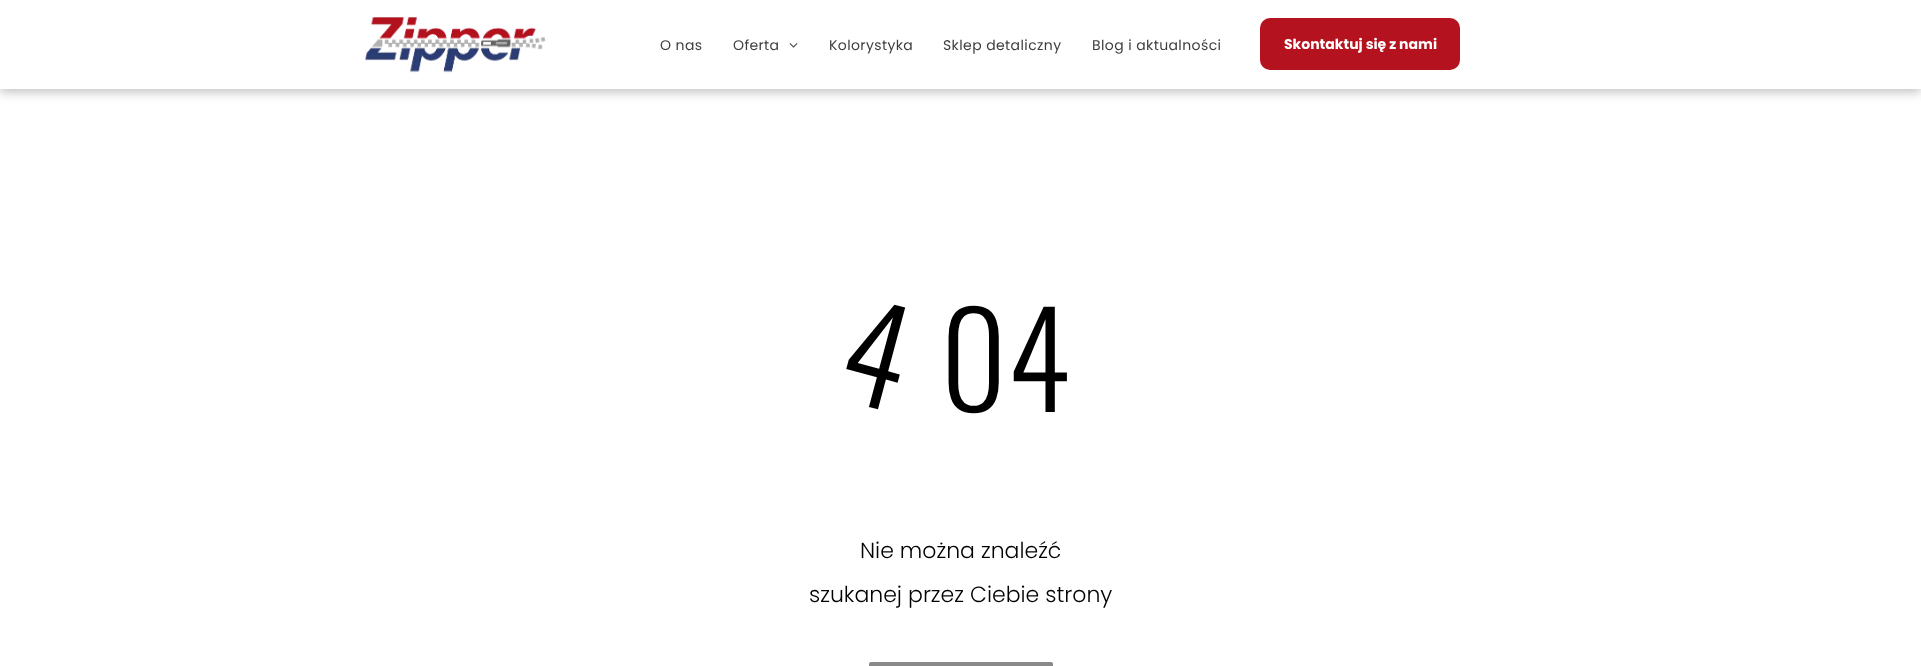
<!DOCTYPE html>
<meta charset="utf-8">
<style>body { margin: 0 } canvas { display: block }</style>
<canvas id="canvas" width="1921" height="666"></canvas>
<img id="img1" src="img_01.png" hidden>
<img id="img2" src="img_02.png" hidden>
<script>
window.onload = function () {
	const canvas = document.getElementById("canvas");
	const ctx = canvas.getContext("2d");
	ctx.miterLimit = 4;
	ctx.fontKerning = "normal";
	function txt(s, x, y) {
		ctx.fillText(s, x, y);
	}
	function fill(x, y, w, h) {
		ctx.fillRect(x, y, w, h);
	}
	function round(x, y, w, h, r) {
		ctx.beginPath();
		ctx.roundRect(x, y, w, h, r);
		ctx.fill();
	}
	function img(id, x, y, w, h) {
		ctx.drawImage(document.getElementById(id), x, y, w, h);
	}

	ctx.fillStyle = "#FFFFFF";
	fill(0, 0, 1921, 666);
	ctx.fillStyle = "rgba(0, 0, 0, 0.25)";
	ctx.filter = "blur(5.5px)";
	ctx.beginPath();
	ctx.rect(0, 3, 1921, 89);
	ctx.fill();
	ctx.filter = "none";
	ctx.fillStyle = "#FFFFFF";
	fill(0, 0, 1921, 89);
	img("img1", 365, 17, 181, 56);
	img("img2", 789, 43, 9, 5);
	ctx.fillStyle = "#B4121F";
	round(1260, 18, 200, 52, 10);
	ctx.fillStyle = "#898989";
	round(869, 662, 184, 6, 2);
	ctx.letterSpacing = "0.4px";
	ctx.font = "14px Poppins";
	ctx.fillStyle = "#3E3E3E";
	txt("O nas", 660, 50);
	txt("Oferta", 733, 50);
	txt("Kolorystyka", 829, 50);
	txt("Sklep detaliczny", 943, 50);
	txt("Blog i aktualności", 1092, 50);
	ctx.letterSpacing = "0px";
	ctx.font = "bold 14px Poppins";
	ctx.fillStyle = "#FFFFFF";
	txt("Skontaktuj się z nami", 1284, 49);
	ctx.font = "300 130px Oswald";
	ctx.fillStyle = "#000000";
	ctx.save();
	ctx.translate(832, 397);
	ctx.rotate(15 * Math.PI / 180);
	ctx.fillText("4", 0, 0);
	ctx.restore();
	txt("04", 940, 412);
	ctx.font = "300 22px Poppins";
	txt("Nie można znaleźć", 860, 558);
	txt("szukanej przez Ciebie strony", 809, 602);
};
</script>
